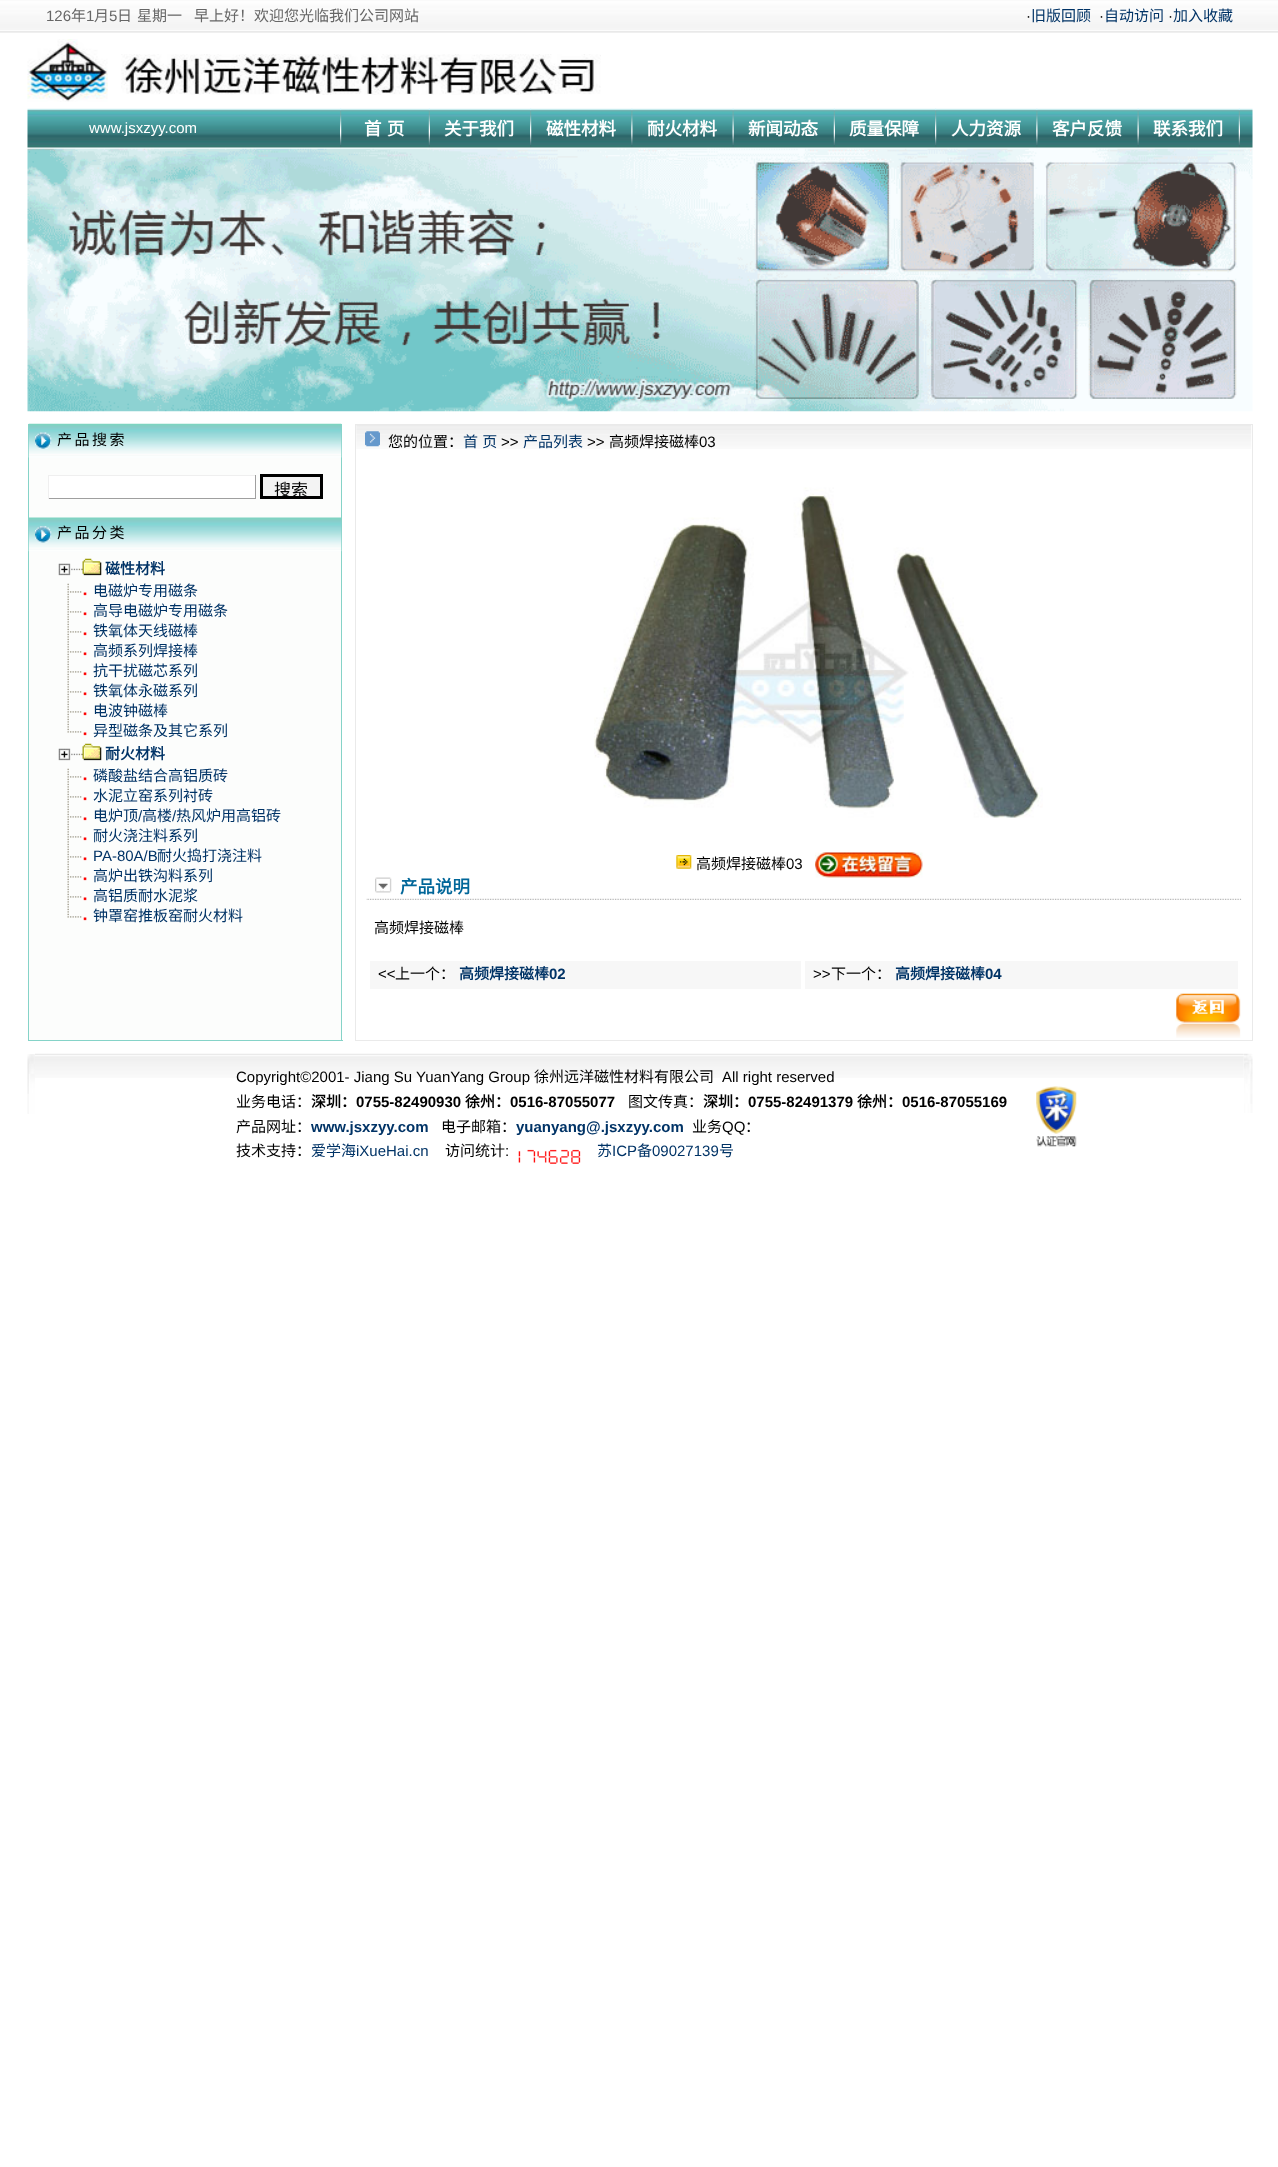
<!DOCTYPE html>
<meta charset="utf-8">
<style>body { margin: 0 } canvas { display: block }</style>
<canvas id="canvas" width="1278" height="2167"></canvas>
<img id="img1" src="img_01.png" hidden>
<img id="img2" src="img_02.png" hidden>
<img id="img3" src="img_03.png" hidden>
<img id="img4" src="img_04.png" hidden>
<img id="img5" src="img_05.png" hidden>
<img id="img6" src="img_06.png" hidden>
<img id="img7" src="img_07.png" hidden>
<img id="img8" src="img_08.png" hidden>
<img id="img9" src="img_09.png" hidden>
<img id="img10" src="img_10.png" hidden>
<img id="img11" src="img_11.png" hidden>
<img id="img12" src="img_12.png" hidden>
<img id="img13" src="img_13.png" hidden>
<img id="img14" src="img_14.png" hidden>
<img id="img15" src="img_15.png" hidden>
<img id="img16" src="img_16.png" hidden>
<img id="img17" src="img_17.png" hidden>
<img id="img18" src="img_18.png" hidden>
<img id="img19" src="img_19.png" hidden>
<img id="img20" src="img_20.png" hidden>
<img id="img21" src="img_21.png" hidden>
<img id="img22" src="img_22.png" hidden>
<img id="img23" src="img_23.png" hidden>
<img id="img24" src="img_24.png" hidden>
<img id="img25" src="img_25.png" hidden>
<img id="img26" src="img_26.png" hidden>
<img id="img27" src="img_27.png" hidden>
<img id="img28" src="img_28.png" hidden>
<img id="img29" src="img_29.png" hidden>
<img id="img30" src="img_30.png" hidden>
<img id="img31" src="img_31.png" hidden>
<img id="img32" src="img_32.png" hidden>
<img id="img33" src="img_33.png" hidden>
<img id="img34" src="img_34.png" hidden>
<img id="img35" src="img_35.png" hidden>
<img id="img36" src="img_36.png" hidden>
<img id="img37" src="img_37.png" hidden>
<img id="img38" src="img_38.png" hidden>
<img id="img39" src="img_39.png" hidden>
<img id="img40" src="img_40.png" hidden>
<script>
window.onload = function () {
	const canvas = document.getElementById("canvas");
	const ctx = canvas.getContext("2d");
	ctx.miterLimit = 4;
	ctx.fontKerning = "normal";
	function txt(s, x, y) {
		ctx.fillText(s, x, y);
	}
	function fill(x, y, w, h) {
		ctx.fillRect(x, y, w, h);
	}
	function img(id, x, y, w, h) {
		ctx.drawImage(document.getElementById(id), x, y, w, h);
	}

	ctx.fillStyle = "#FFFFFF";
	fill(0, 0, 1278, 2167);
	img("img1", 0, 0, 1278, 33);
	img("img2", 27, 39, 81, 63);
	img("img3", 121, 54, 480, 41);
	img("img4", 27, 108, 1226, 41);
	img("img5", 340, 108, 2, 41);
	img("img6", 428, 108, 2, 41);
	img("img7", 530, 108, 2, 41);
	img("img8", 631, 108, 2, 41);
	img("img9", 732, 108, 2, 41);
	img("img10", 833, 108, 2, 41);
	img("img5", 935, 108, 2, 41);
	img("img8", 1036, 108, 2, 41);
	img("img9", 1137, 108, 2, 41);
	img("img6", 1238, 108, 2, 41);
	img("img11", 27, 148, 1226, 264);
	ctx.fillStyle = "#FCFDFC";
	fill(29, 457, 312, 583);
	ctx.fillStyle = "#85D3C8";
	fill(341, 424, 1, 617);
	fill(28, 1040, 315, 1);
	fill(28, 424, 1, 617);
	img("img12", 28, 423, 314, 35);
	img("img13", 35, 432, 17, 17);
	ctx.fillStyle = "#FFFFFF";
	fill(49, 476, 206, 22);
	ctx.fillStyle = "#EFEFEF";
	fill(48, 475, 208, 1);
	ctx.fillStyle = "#9F9F9F";
	fill(255, 475, 1, 24);
	fill(48, 498, 208, 1);
	ctx.fillStyle = "#EFEFEF";
	fill(48, 475, 1, 24);
	ctx.fillStyle = "#F3F3F3";
	ctx.beginPath();
	ctx.rect(261.5, 475.5, 60, 22);
	ctx.fill();
	ctx.strokeStyle = "#000000";
	ctx.lineWidth = 3;
	ctx.stroke();
	img("img14", 28, 517, 314, 35);
	img("img15", 35, 526, 17, 17);
	img("img16", 58, 563, 20, 13);
	img("img17", 78, 558, 24, 18);
	img("img18", 67, 583, 15, 20);
	img("img19", 83, 592, 4, 4);
	img("img20", 67, 603, 15, 20);
	img("img21", 83, 612, 4, 4);
	img("img20", 67, 623, 15, 20);
	img("img21", 83, 632, 4, 4);
	img("img20", 67, 643, 15, 20);
	img("img21", 83, 652, 4, 4);
	img("img20", 67, 663, 15, 20);
	img("img21", 83, 672, 4, 4);
	img("img20", 67, 683, 15, 20);
	img("img21", 83, 692, 4, 4);
	img("img20", 67, 703, 15, 20);
	img("img21", 83, 712, 4, 4);
	img("img22", 67, 723, 15, 10);
	img("img21", 83, 732, 4, 4);
	img("img16", 58, 748, 20, 13);
	img("img17", 78, 743, 24, 18);
	img("img20", 67, 768, 15, 20);
	img("img21", 83, 777, 4, 4);
	img("img20", 67, 788, 15, 20);
	img("img21", 83, 797, 4, 4);
	img("img20", 67, 808, 15, 20);
	img("img21", 83, 817, 4, 4);
	img("img20", 67, 828, 15, 20);
	img("img21", 83, 837, 4, 4);
	img("img20", 67, 848, 15, 20);
	img("img21", 83, 857, 4, 4);
	img("img20", 67, 868, 15, 20);
	img("img21", 83, 877, 4, 4);
	img("img20", 67, 888, 15, 20);
	img("img21", 83, 897, 4, 4);
	img("img22", 67, 908, 15, 10);
	img("img21", 83, 917, 4, 4);
	ctx.strokeStyle = "#EAEAEA";
	ctx.lineWidth = 1;
	ctx.strokeRect(355.5, 424.5, 897, 616);
	img("img23", 356, 425, 896, 24);
	img("img24", 365, 431, 15, 16);
	img("img25", 594, 487, 449, 331);
	img("img26", 676, 855, 16, 14);
	img("img27", 815, 852, 108, 26);
	img("img28", 375, 877, 17, 16);
	img("img29", 366, 898, 876, 2);
	ctx.fillStyle = "#F7F7F7";
	fill(370, 961, 431, 28);
	fill(805, 961, 433, 28);
	img("img30", 1175, 992, 66, 46);
	img("img31", 27, 1054, 8, 60);
	img("img32", 35, 1053, 1209, 25);
	img("img33", 1036, 1086, 41, 61);
	img("img34", 518, 1151, 3, 12);
	img("img35", 527, 1149, 9, 14);
	img("img36", 537, 1151, 10, 12);
	img("img37", 548, 1149, 10, 15);
	img("img38", 559, 1149, 10, 15);
	img("img39", 571, 1149, 10, 15);
	img("img40", 1244, 1053, 9, 60);
	ctx.font = "15px Liberation Sans";
	ctx.fillStyle = "#666666";
	txt("126", 46, 21);
	ctx.font = "15px Noto Sans CJK SC";
	txt("年", 71, 21);
	ctx.font = "15px Liberation Sans";
	txt("1", 86, 21);
	ctx.font = "15px Noto Sans CJK SC";
	txt("月", 94, 21);
	ctx.font = "15px Liberation Sans";
	txt("5", 109, 21);
	ctx.font = "15px Noto Sans CJK SC";
	txt("日", 117, 21);
	txt("星期一", 137, 21);
	txt("早上好！欢迎您光临我们公司网站", 194, 21);
	ctx.font = "15px Liberation Sans";
	ctx.fillStyle = "#000000";
	txt("·", 1026, 21);
	ctx.font = "15px Noto Sans CJK SC";
	ctx.fillStyle = "#003366";
	txt("旧版回顾", 1031, 21);
	ctx.font = "15px Liberation Sans";
	ctx.fillStyle = "#000000";
	txt("·", 1099, 21);
	ctx.font = "15px Noto Sans CJK SC";
	ctx.fillStyle = "#003366";
	txt("自动访问", 1104, 21);
	ctx.font = "15px Liberation Sans";
	ctx.fillStyle = "#000000";
	txt("·", 1168, 21);
	ctx.font = "15px Noto Sans CJK SC";
	ctx.fillStyle = "#003366";
	txt("加入收藏", 1173, 21);
	ctx.font = "15px Liberation Sans";
	ctx.fillStyle = "#FFFFFF";
	txt("www.jsxzyy.com", 89, 133);
	ctx.font = "bold 17.5px Noto Sans CJK SC";
	txt("首", 364, 135);
	txt("页", 387, 135);
	txt("关于我们", 444, 135);
	txt("磁性材料", 546, 135);
	txt("耐火材料", 647, 135);
	txt("新闻动态", 748, 135);
	txt("质量保障", 849, 135);
	txt("人力资源", 951, 135);
	txt("客户反馈", 1052, 135);
	txt("联系我们", 1153, 135);
	ctx.letterSpacing = "2.5px";
	ctx.font = "15px Noto Sans CJK SC";
	ctx.fillStyle = "#000000";
	txt("产品搜索", 57, 445);
	ctx.save();
	ctx.beginPath();
	ctx.rect(263, 476, 57, 20);
	ctx.clip();
	ctx.letterSpacing = "0px";
	ctx.font = "17px Noto Sans CJK SC";
	txt("搜索", 274, 496);
	ctx.restore();
	txt("产品分类", 57, 538);
	ctx.letterSpacing = "0px";
	ctx.font = "bold 15px Noto Sans CJK SC";
	ctx.fillStyle = "#003366";
	txt("磁性材料", 105, 574);
	ctx.font = "15px Noto Sans CJK SC";
	txt("电磁炉专用磁条", 93, 596);
	txt("高导电磁炉专用磁条", 93, 616);
	txt("铁氧体天线磁棒", 93, 636);
	txt("高频系列焊接棒", 93, 656);
	txt("抗干扰磁芯系列", 93, 676);
	txt("铁氧体永磁系列", 93, 696);
	txt("电波钟磁棒", 93, 716);
	txt("异型磁条及其它系列", 93, 736);
	ctx.font = "bold 15px Noto Sans CJK SC";
	txt("耐火材料", 105, 759);
	ctx.font = "15px Noto Sans CJK SC";
	txt("磷酸盐结合高铝质砖", 93, 781);
	txt("水泥立窑系列衬砖", 93, 801);
	txt("电炉顶", 93, 821);
	ctx.font = "15px Liberation Sans";
	txt("/", 138, 821);
	ctx.font = "15px Noto Sans CJK SC";
	txt("高楼", 142, 821);
	ctx.font = "15px Liberation Sans";
	txt("/", 172, 821);
	ctx.font = "15px Noto Sans CJK SC";
	txt("热风炉用高铝砖", 176, 821);
	txt("耐火浇注料系列", 93, 841);
	ctx.font = "15px Liberation Sans";
	txt("PA-80A/B", 93, 861);
	ctx.font = "15px Noto Sans CJK SC";
	txt("耐火捣打浇注料", 157, 861);
	txt("高炉出铁沟料系列", 93, 881);
	txt("高铝质耐水泥浆", 93, 901);
	txt("钟罩窑推板窑耐火材料", 93, 921);
	ctx.fillStyle = "#000000";
	txt("您的位置：", 388, 447);
	ctx.wordSpacing = "1px";
	ctx.fillStyle = "#003366";
	txt("首 页", 463, 447);
	ctx.wordSpacing = "0px";
	ctx.font = "15px Liberation Sans";
	ctx.fillStyle = "#000000";
	txt(">>", 501, 447);
	ctx.font = "15px Noto Sans CJK SC";
	ctx.fillStyle = "#003366";
	txt("产品列表", 523, 447);
	ctx.font = "15px Liberation Sans";
	ctx.fillStyle = "#000000";
	txt(">>", 587, 447);
	ctx.font = "15px Noto Sans CJK SC";
	txt("高频焊接磁棒", 609, 447);
	ctx.font = "15px Liberation Sans";
	txt("03", 699, 447);
	ctx.font = "15px Noto Sans CJK SC";
	txt("高频焊接磁棒", 696, 869);
	ctx.font = "15px Liberation Sans";
	txt("03", 786, 869);
	ctx.font = "bold 17.5px Noto Sans CJK SC";
	ctx.fillStyle = "#006699";
	txt("产品说明", 400, 893);
	ctx.font = "15px Noto Sans CJK SC";
	ctx.fillStyle = "#000000";
	txt("高频焊接磁棒", 374, 933);
	ctx.font = "15px Liberation Sans";
	txt("<<", 378, 979);
	ctx.font = "15px Noto Sans CJK SC";
	txt("上一个：", 395, 979);
	ctx.font = "bold 15px Noto Sans CJK SC";
	ctx.fillStyle = "#003366";
	txt("高频焊接磁棒", 459, 979);
	ctx.font = "bold 15px Liberation Sans";
	txt("02", 549, 979);
	ctx.font = "15px Liberation Sans";
	ctx.fillStyle = "#000000";
	txt(">>", 813, 979);
	ctx.font = "15px Noto Sans CJK SC";
	txt("下一个：", 831, 979);
	ctx.font = "bold 15px Noto Sans CJK SC";
	ctx.fillStyle = "#003366";
	txt("高频焊接磁棒", 895, 979);
	ctx.font = "bold 15px Liberation Sans";
	txt("04", 985, 979);
	ctx.font = "15px Liberation Sans";
	ctx.fillStyle = "#000000";
	txt("Copyright©2001- Jiang Su YuanYang Group", 236, 1082);
	ctx.font = "15px Noto Sans CJK SC";
	txt("徐州远洋磁性材料有限公司", 534, 1082);
	ctx.font = "15px Liberation Sans";
	txt("All right reserved", 722, 1082);
	ctx.font = "15px Noto Sans CJK SC";
	txt("业务电话：", 236, 1107);
	ctx.font = "bold 15px Noto Sans CJK SC";
	txt("深圳：", 311, 1107);
	ctx.font = "bold 15px Liberation Sans";
	txt("0755-82490930", 356, 1107);
	ctx.font = "bold 15px Noto Sans CJK SC";
	txt("徐州：", 465, 1107);
	ctx.font = "bold 15px Liberation Sans";
	txt("0516-87055077", 510, 1107);
	ctx.font = "15px Noto Sans CJK SC";
	txt("图文传真：", 628, 1107);
	ctx.font = "bold 15px Noto Sans CJK SC";
	txt("深圳：", 703, 1107);
	ctx.font = "bold 15px Liberation Sans";
	txt("0755-82491379", 748, 1107);
	ctx.font = "bold 15px Noto Sans CJK SC";
	txt("徐州：", 857, 1107);
	ctx.font = "bold 15px Liberation Sans";
	txt("0516-87055169", 902, 1107);
	ctx.font = "15px Noto Sans CJK SC";
	txt("产品网址：", 236, 1132);
	ctx.font = "bold 15px Liberation Sans";
	ctx.fillStyle = "#003366";
	txt("www.jsxzyy.com", 311, 1132);
	ctx.font = "15px Noto Sans CJK SC";
	ctx.fillStyle = "#000000";
	txt("电子邮箱：", 441, 1132);
	ctx.font = "bold 15px Liberation Sans";
	ctx.fillStyle = "#003366";
	txt("yuanyang@.jsxzyy.com", 516, 1132);
	ctx.font = "15px Noto Sans CJK SC";
	ctx.fillStyle = "#000000";
	txt("业务", 692, 1132);
	ctx.font = "15px Liberation Sans";
	txt("QQ", 722, 1132);
	ctx.font = "15px Noto Sans CJK SC";
	txt("：", 745, 1132);
	txt("技术支持：", 236, 1156);
	ctx.fillStyle = "#003366";
	txt("爱学海", 311, 1156);
	ctx.font = "15px Liberation Sans";
	txt("iXueHai.cn", 356, 1156);
	ctx.font = "15px Noto Sans CJK SC";
	ctx.fillStyle = "#000000";
	txt("访问统计", 445, 1156);
	ctx.font = "15px Liberation Sans";
	txt(":", 505, 1156);
	ctx.font = "15px Noto Sans CJK SC";
	ctx.fillStyle = "#003366";
	txt("苏", 597, 1156);
	ctx.font = "15px Liberation Sans";
	txt("ICP", 612, 1156);
	ctx.font = "15px Noto Sans CJK SC";
	txt("备", 637, 1156);
	ctx.font = "15px Liberation Sans";
	txt("09027139", 652, 1156);
	ctx.font = "15px Noto Sans CJK SC";
	txt("号", 719, 1156);
};
</script>
